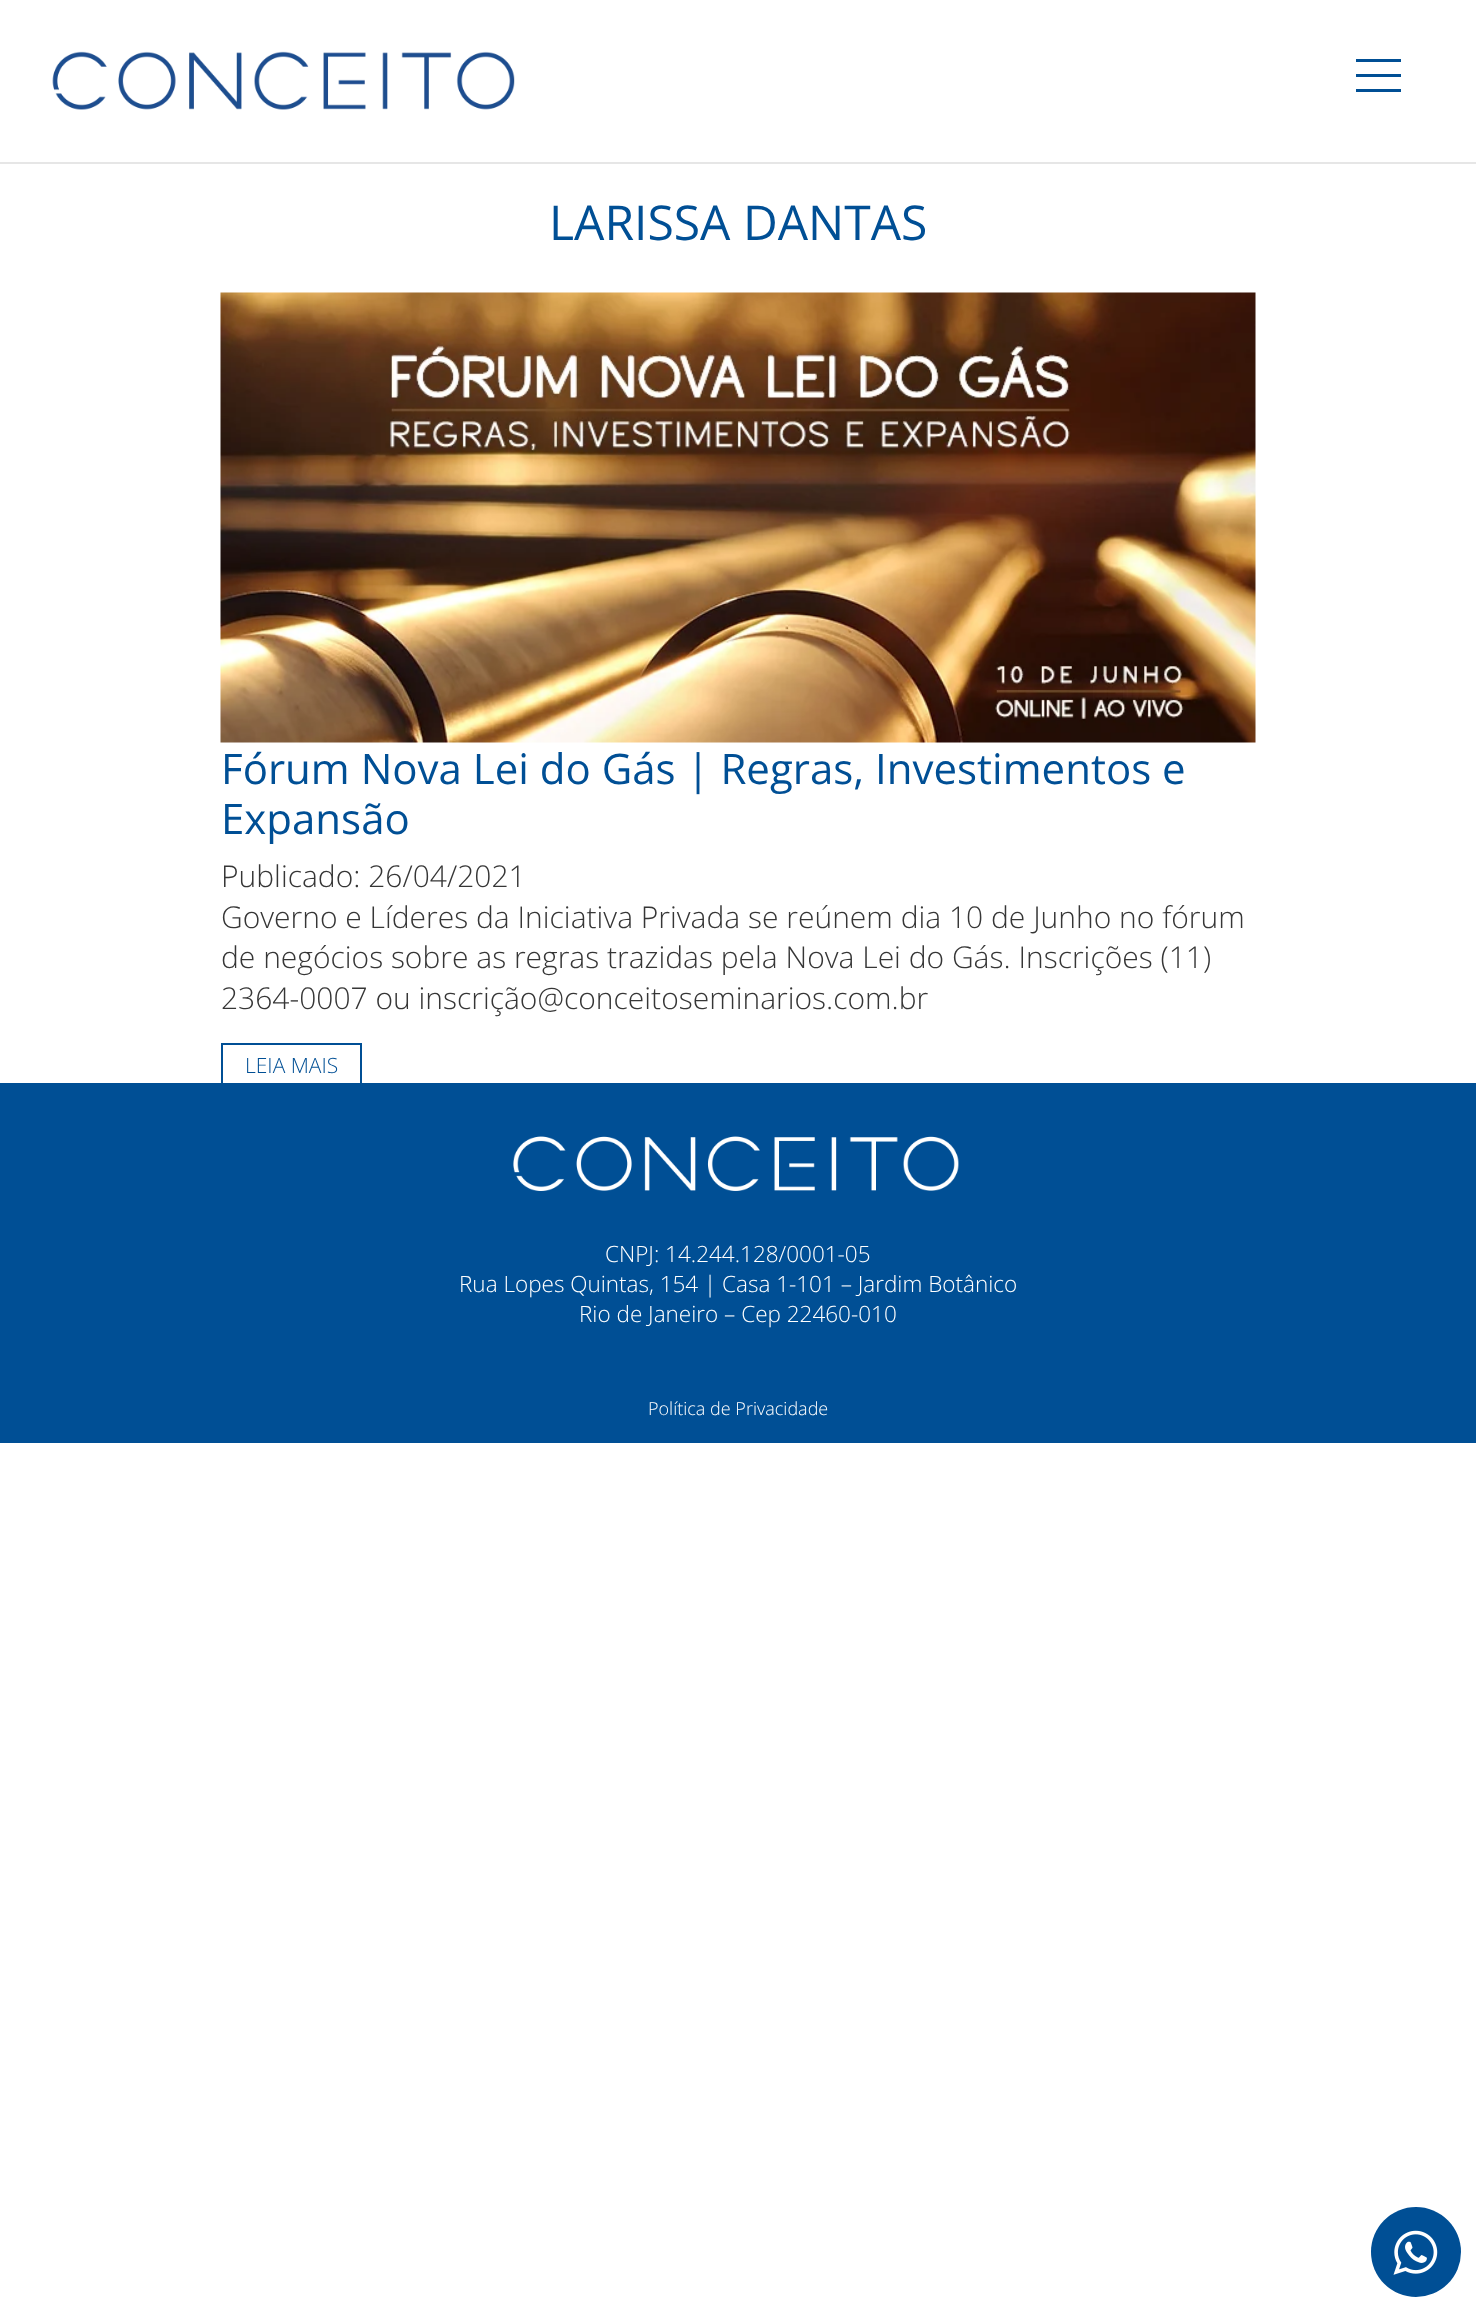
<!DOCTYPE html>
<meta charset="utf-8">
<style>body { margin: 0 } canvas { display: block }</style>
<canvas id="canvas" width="1476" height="2303"></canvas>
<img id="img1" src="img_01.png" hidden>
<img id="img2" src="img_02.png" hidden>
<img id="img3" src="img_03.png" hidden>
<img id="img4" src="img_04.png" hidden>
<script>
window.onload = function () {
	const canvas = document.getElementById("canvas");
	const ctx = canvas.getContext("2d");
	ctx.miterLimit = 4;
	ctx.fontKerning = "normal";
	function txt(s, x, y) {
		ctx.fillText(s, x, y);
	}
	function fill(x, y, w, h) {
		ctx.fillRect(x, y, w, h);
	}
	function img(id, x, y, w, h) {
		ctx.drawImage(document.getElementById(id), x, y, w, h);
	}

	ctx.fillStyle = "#FFFFFF";
	fill(0, 0, 1476, 2303);
	ctx.fillStyle = "#E6E6E6";
	fill(0, 162, 1476, 2);
	img("img1", 52, 51, 463, 59);
	ctx.fillStyle = "#004F95";
	fill(1356, 74, 45, 3);
	fill(1356, 59, 45, 3);
	fill(1356, 89, 45, 3);
	img("img2", 220, 292, 1036, 451);
	fill(0, 1083, 1476, 360);
	ctx.strokeStyle = "#004F95";
	ctx.lineWidth = 2;
	ctx.strokeRect(222, 1044, 139, 44);
	img("img3", 513, 1136, 446, 55);
	ctx.beginPath();
	ctx.arc(1416, 2252, 45, 0, Math.PI * 2);
	ctx.fill();
	img("img4", 1393, 2230, 45, 45);
	ctx.font = "48px Open Sans";
	txt("LARISSA DANTAS", 549, 240);
	ctx.font = "42px Open Sans";
	txt("Fórum Nova Lei do Gás | Regras, Investimentos e", 221, 784);
	txt("Expansão", 221, 834);
	ctx.font = "300 30px Open Sans";
	ctx.fillStyle = "#363636";
	txt("Publicado: 26/04/2021", 221, 887);
	txt("Governo e Líderes da Iniciativa Privada se reúnem dia 10 de Junho no fórum", 221, 928);
	txt("de negócios sobre as regras trazidas pela Nova Lei do Gás. Inscrições (11)", 221, 968);
	txt("2364-0007 ou inscrição@conceitoseminarios.com.br", 221, 1009);
	ctx.font = "300 21px Open Sans";
	ctx.fillStyle = "#004F95";
	txt("LEIA MAIS", 245, 1073);
	ctx.font = "300 22.5px Open Sans";
	ctx.fillStyle = "#FFFFFF";
	txt("CNPJ: 14.244.128/0001-05", 605, 1262);
	txt("Rua Lopes Quintas, 154 | Casa 1-101 – Jardim Botânico", 459, 1292);
	txt("Rio de Janeiro – Cep 22460-010", 579, 1322);
	ctx.font = "300 18px Open Sans";
	txt("Política de Privacidade", 648, 1415);
};
</script>
